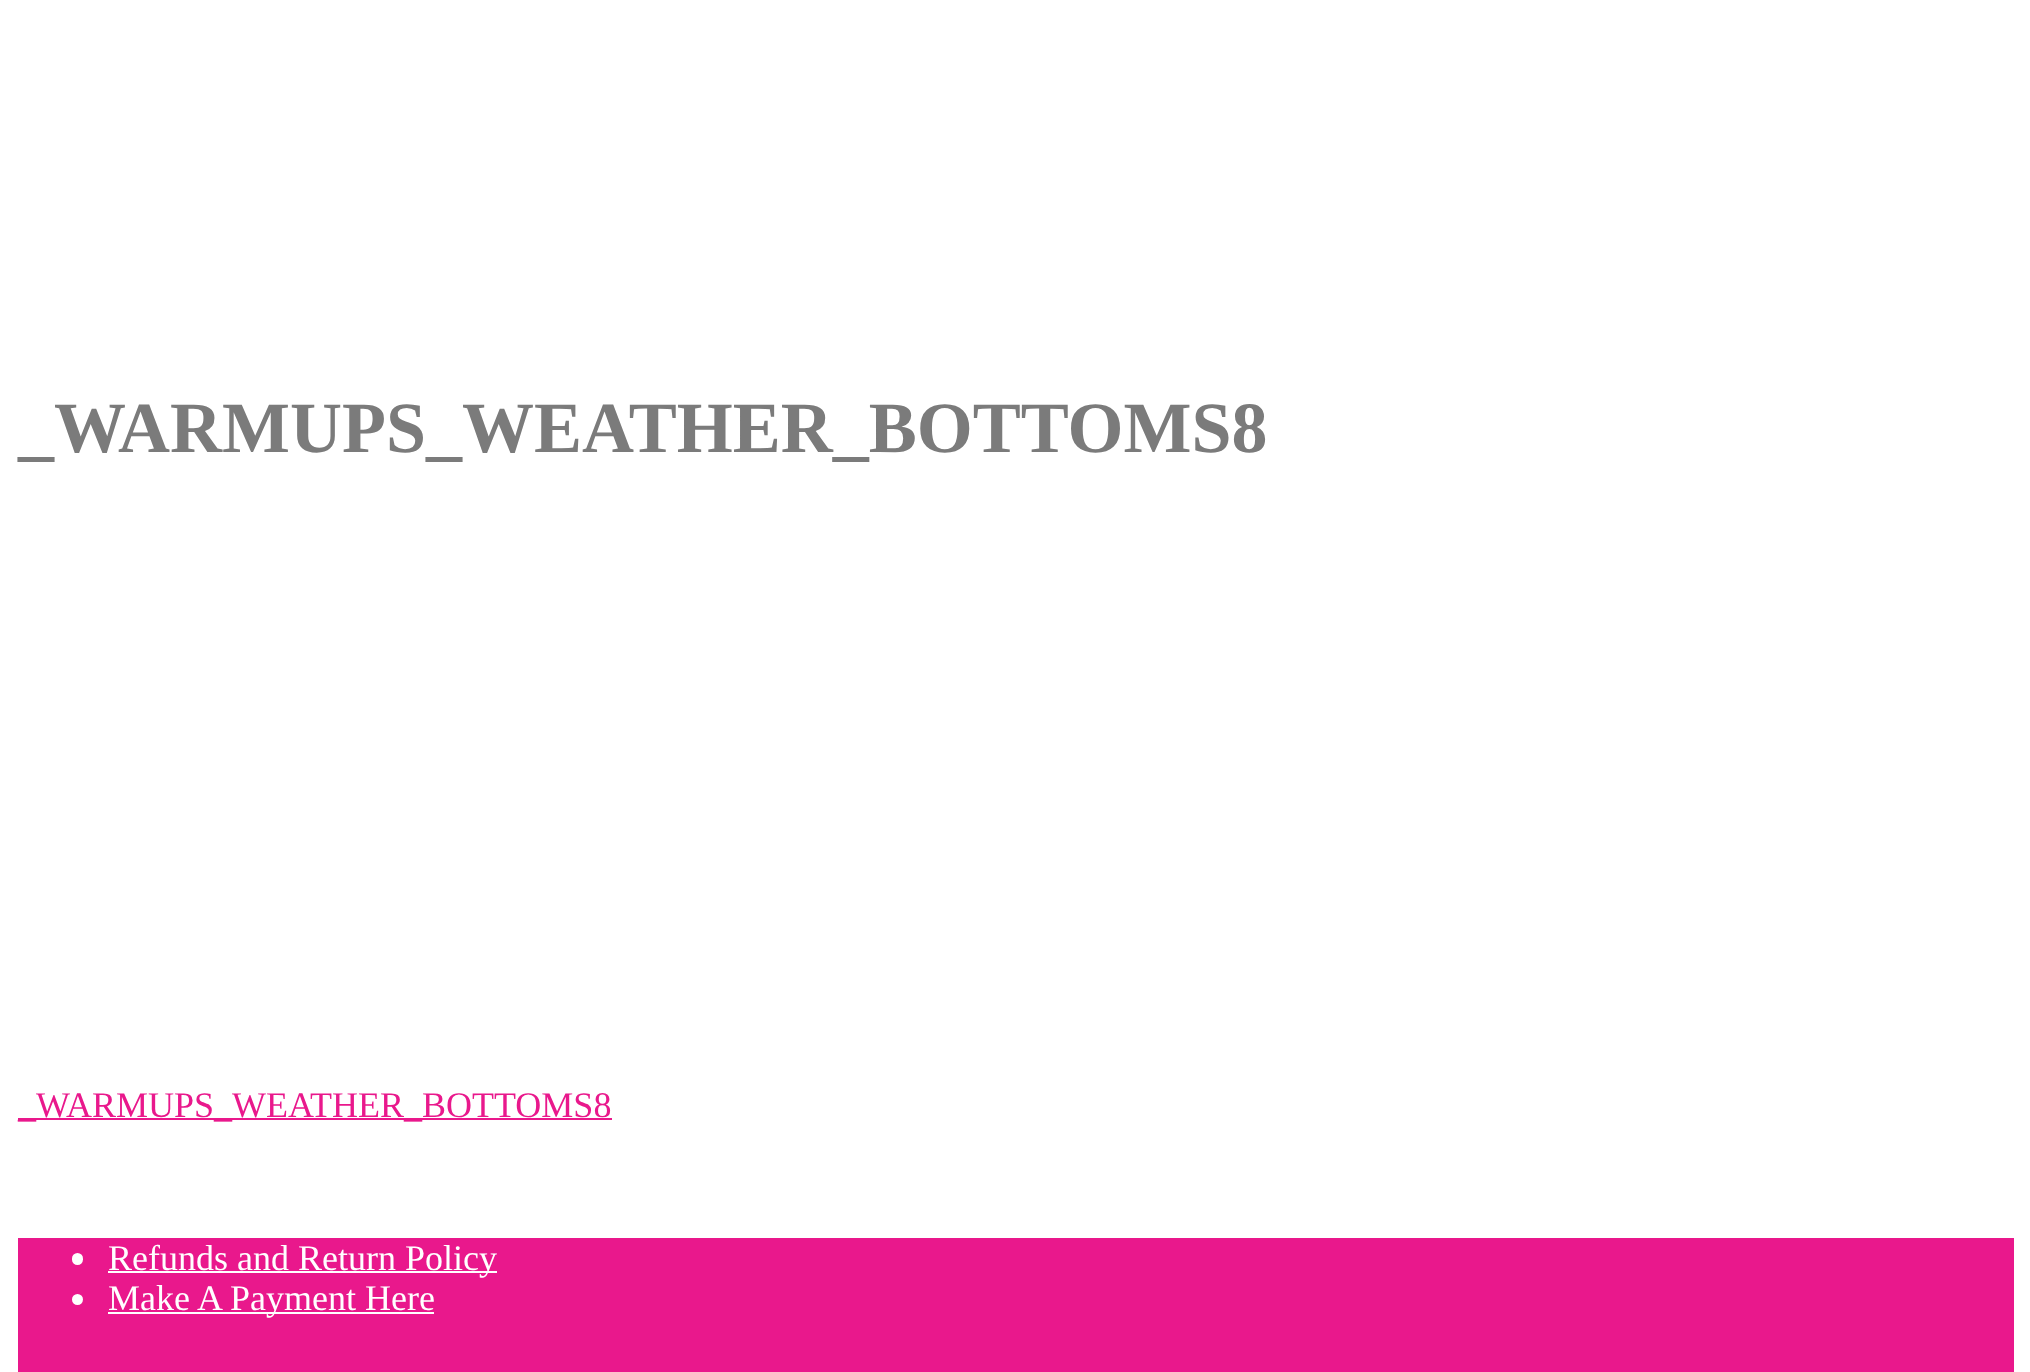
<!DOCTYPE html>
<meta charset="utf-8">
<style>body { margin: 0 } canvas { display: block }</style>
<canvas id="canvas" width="2030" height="1372"></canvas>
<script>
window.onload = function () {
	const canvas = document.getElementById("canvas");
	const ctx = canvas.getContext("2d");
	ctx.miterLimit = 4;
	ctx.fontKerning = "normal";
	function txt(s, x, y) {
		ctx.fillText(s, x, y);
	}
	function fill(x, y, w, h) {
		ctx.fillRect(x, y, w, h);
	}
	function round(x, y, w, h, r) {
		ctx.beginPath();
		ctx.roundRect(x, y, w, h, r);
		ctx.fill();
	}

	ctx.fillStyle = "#FFFFFF";
	fill(0, 0, 2030, 1372);
	ctx.fillStyle = "#E9188C";
	fill(18, 1118, 594, 2);
	fill(18, 1238, 1996, 134);
	ctx.fillStyle = "#FFFFFF";
	round(72, 1253, 11, 12, 5.5);
	fill(108, 1271, 389, 2);
	ctx.beginPath();
	ctx.arc(77.5, 1299.5, 5.5, 0, Math.PI * 2);
	ctx.fill();
	fill(108, 1312, 326, 2);
	ctx.font = "bold 72px Liberation Serif";
	ctx.fillStyle = "#7B7B7B";
	txt("_WARMUPS_WEATHER_BOTTOMS8", 18, 452);
	ctx.font = "36px Liberation Serif";
	ctx.fillStyle = "#E9188C";
	txt("_WARMUPS_WEATHER_BOTTOMS8", 18, 1117);
	ctx.fillStyle = "#FFFFFF";
	txt("Refunds and Return Policy", 108, 1270);
	txt("Make A Payment Here", 108, 1310);
};
</script>
